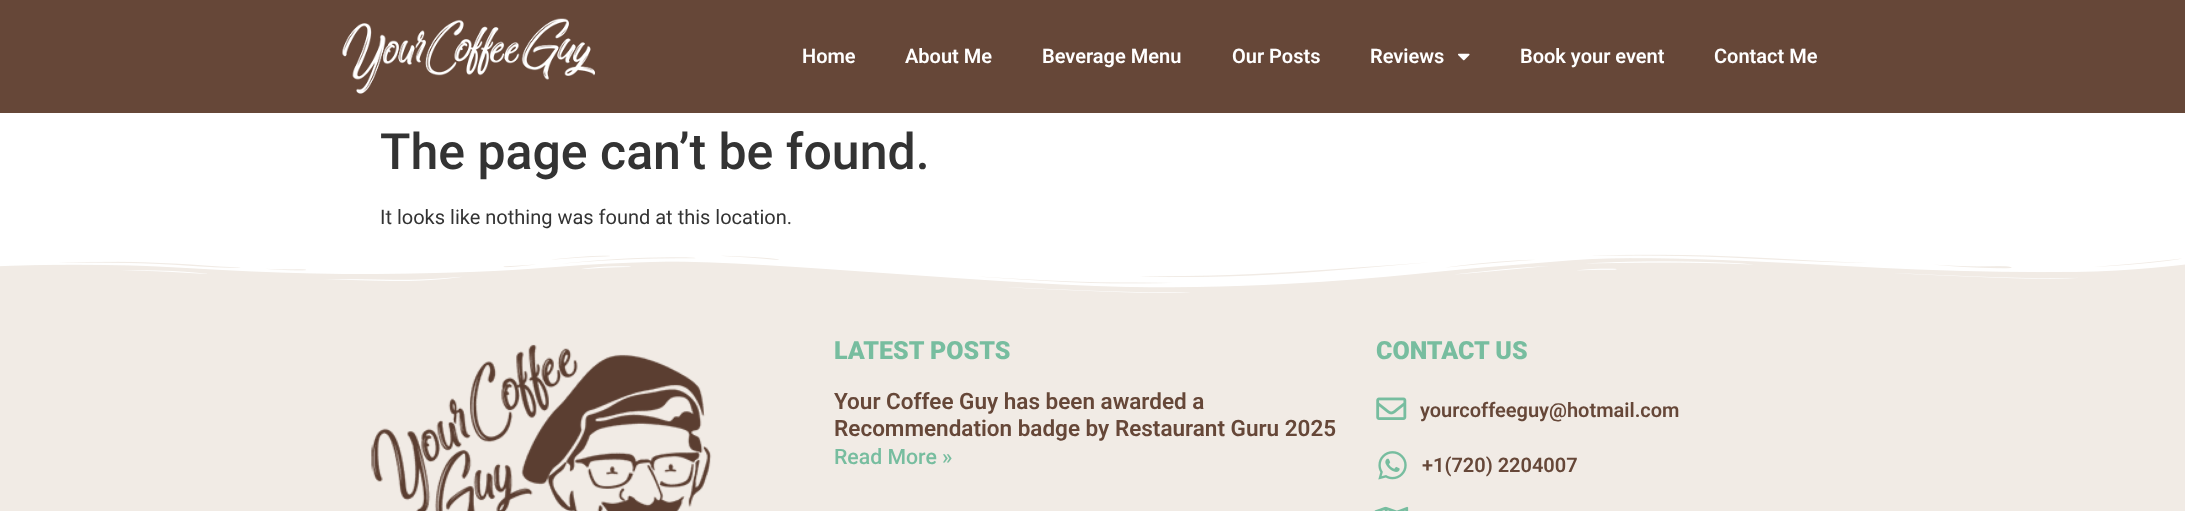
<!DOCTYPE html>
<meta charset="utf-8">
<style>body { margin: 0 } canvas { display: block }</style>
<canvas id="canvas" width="2185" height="511"></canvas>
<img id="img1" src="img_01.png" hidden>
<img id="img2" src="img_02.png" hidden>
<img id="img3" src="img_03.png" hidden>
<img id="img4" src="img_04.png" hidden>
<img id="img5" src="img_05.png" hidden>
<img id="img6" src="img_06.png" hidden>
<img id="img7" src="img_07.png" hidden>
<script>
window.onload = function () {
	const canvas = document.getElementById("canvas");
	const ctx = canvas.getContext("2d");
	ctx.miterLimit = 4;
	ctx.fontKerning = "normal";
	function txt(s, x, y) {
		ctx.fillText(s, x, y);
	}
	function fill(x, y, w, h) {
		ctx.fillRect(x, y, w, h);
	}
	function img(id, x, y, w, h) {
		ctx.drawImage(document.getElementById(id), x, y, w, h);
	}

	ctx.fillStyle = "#FFFFFF";
	fill(0, 0, 2185, 511);
	ctx.fillStyle = "#664738";
	fill(0, 0, 2185, 113);
	img("img1", 342, 18, 253, 76);
	img("img2", 1458, 53, 12, 8);
	ctx.fillStyle = "#F1EBE5";
	fill(0, 254, 2185, 257);
	img("img3", 0, 250, 2185, 43);
	img("img4", 371, 344, 341, 167);
	img("img5", 1376, 397, 31, 23);
	img("img6", 1378, 451, 29, 29);
	img("img7", 1374, 506, 35, 5);
	ctx.font = "600 20px Roboto";
	ctx.fillStyle = "#FFFFFF";
	txt("Home", 802, 63);
	txt("About Me", 905, 63);
	txt("Beverage Menu", 1042, 63);
	txt("Our Posts", 1232, 63);
	txt("Reviews", 1370, 63);
	txt("Book your event", 1520, 63);
	txt("Contact Me", 1714, 63);
	ctx.font = "500 50px Roboto";
	ctx.fillStyle = "#333333";
	txt("The page can’t be found.", 380, 169);
	ctx.font = "20px Roboto";
	txt("It looks like nothing was found at this location.", 380, 224);
	ctx.font = "900 25px Roboto";
	ctx.fillStyle = "#77BD9F";
	txt("LATEST POSTS", 834, 359);
	ctx.font = "600 22.5px Roboto";
	ctx.fillStyle = "#664738";
	txt("Your Coffee Guy has been awarded a", 834, 409);
	txt("Recommendation badge by Restaurant Guru 2025", 834, 436);
	ctx.font = "500 21.25px Roboto";
	ctx.fillStyle = "#77BD9F";
	txt("Read More »", 834, 464);
	ctx.font = "900 25px Roboto";
	txt("CONTACT US", 1376, 359);
	ctx.font = "600 20px Roboto";
	ctx.fillStyle = "#664738";
	txt("yourcoffeeguy@hotmail.com", 1420, 417);
	txt("+1(720) 2204007", 1422, 472);
};
</script>
